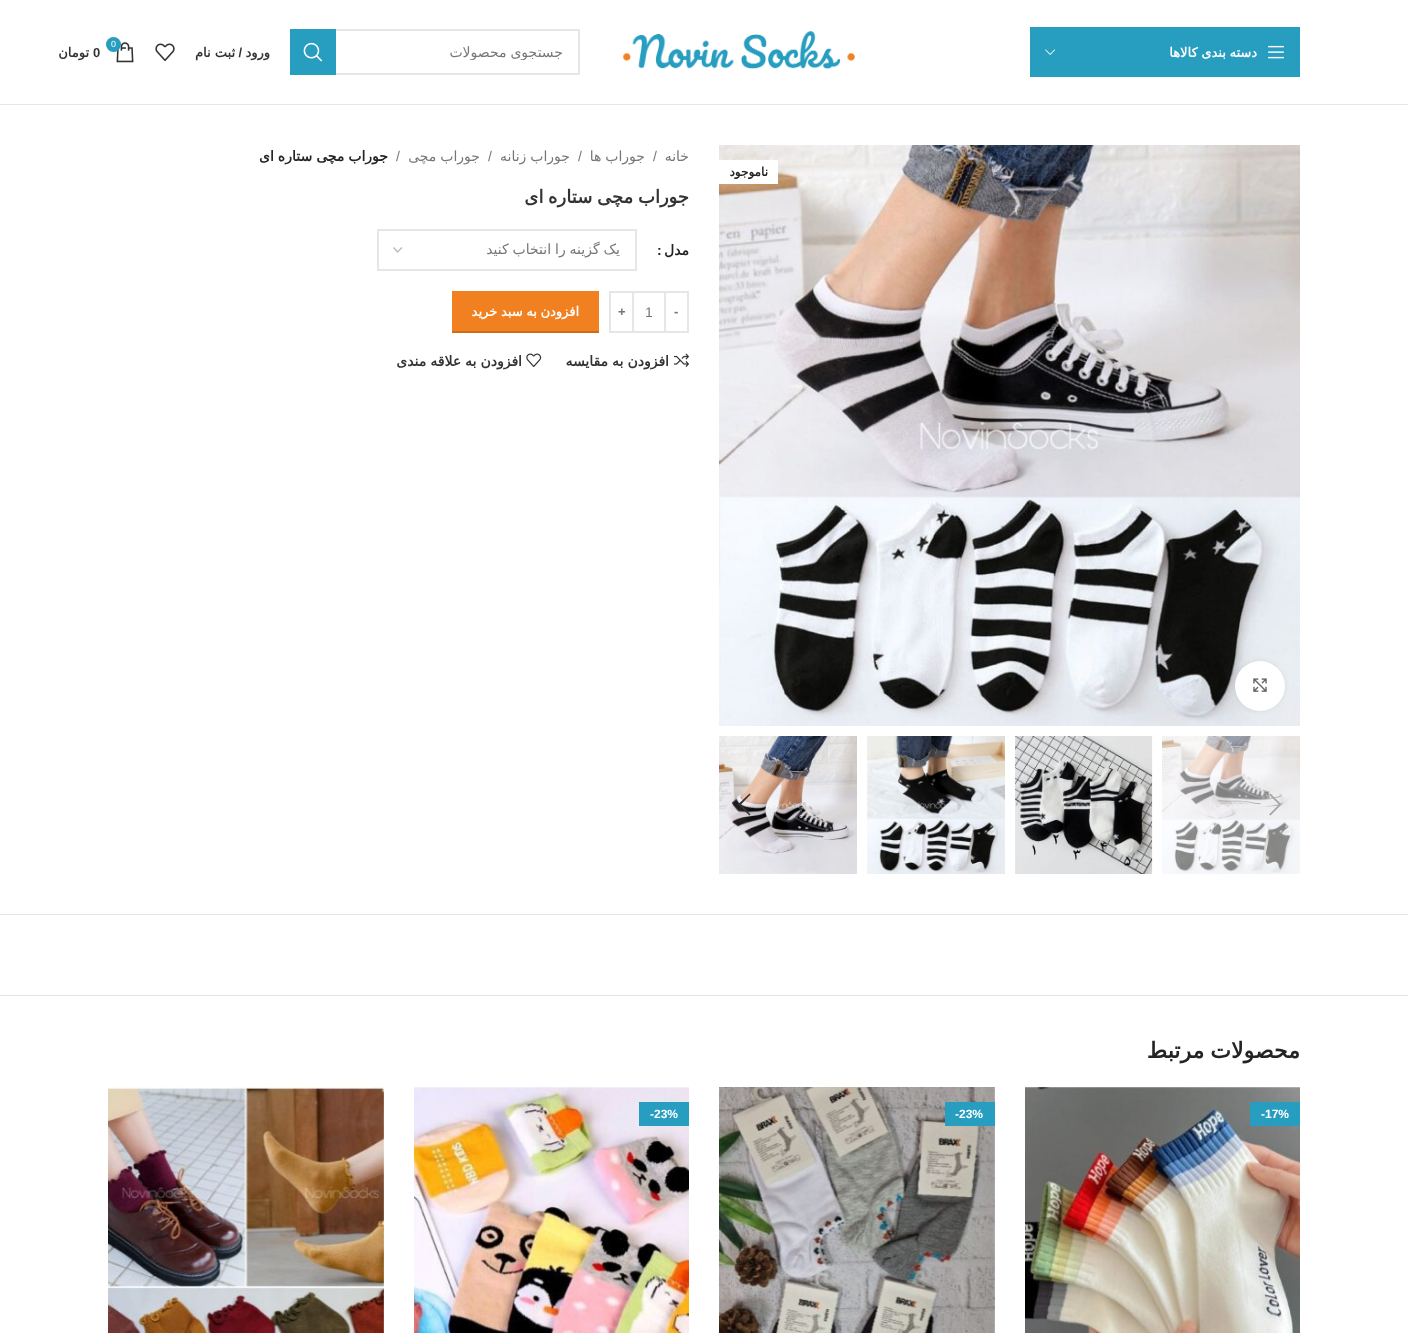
<!DOCTYPE html>
<meta charset="utf-8">
<style>body { margin: 0 } canvas { display: block }</style>
<canvas id="canvas" width="1408" height="1333"></canvas>
<img id="img1" src="img_01.png" hidden>
<img id="img2" src="img_02.png" hidden>
<img id="img3" src="img_03.png" hidden>
<img id="img4" src="img_04.png" hidden>
<img id="img5" src="img_05.png" hidden>
<img id="img6" src="img_06.png" hidden>
<img id="img7" src="img_07.png" hidden>
<img id="img8" src="img_08.png" hidden>
<img id="img9" src="img_09.png" hidden>
<img id="img10" src="img_10.png" hidden>
<img id="img11" src="img_11.png" hidden>
<img id="img12" src="img_12.png" hidden>
<img id="img13" src="img_13.png" hidden>
<img id="img14" src="img_14.png" hidden>
<img id="img15" src="img_15.png" hidden>
<img id="img16" src="img_16.png" hidden>
<img id="img17" src="img_17.png" hidden>
<img id="img18" src="img_18.png" hidden>
<script>
window.onload = function () {
	const canvas = document.getElementById("canvas");
	const ctx = canvas.getContext("2d");
	ctx.miterLimit = 4;
	ctx.fontKerning = "normal";
	function txt(s, x, y) {
		ctx.fillText(s, x, y);
	}
	function fill(x, y, w, h) {
		ctx.fillRect(x, y, w, h);
	}
	function img(id, x, y, w, h) {
		ctx.drawImage(document.getElementById(id), x, y, w, h);
	}

	ctx.fillStyle = "#FFFFFF";
	fill(0, 0, 1408, 1333);
	ctx.fillStyle = "#E6E6E6";
	fill(0, 104, 1408, 1);
	ctx.fillStyle = "#279DBF";
	fill(1030, 27, 270, 50);
	img("img1", 1268, 45, 16, 14);
	img("img2", 1045, 49, 11, 6);
	img("img3", 622, 30, 233, 39);
	ctx.strokeStyle = "#E6E6E6";
	ctx.lineWidth = 2;
	ctx.strokeRect(291, 30, 288, 44);
	fill(290, 29, 46, 46);
	img("img4", 303, 42, 20, 20);
	img("img5", 155, 43, 20, 18);
	img("img6", 116, 42, 18, 21);
	ctx.beginPath();
	ctx.arc(113.5, 44.5, 7.5, 0, Math.PI * 2);
	ctx.fill();
	img("img7", 719, 145, 581, 581);
	ctx.fillStyle = "#FFFFFF";
	fill(719, 160, 59, 24);
	ctx.fillStyle = "rgba(0, 0, 0, 0.08)";
	ctx.filter = "blur(2.5px)";
	ctx.beginPath();
	ctx.roundRect(1235, 661, 50, 50, 25);
	ctx.fill();
	ctx.filter = "none";
	ctx.fillStyle = "#FFFFFF";
	ctx.beginPath();
	ctx.arc(1260, 686, 25, 0, Math.PI * 2);
	ctx.fill();
	img("img8", 1253, 678, 14, 14);
	img("img9", 1162, 736, 138, 138);
	img("img10", 1015, 736, 138, 138);
	img("img11", 867, 736, 138, 138);
	img("img12", 719, 736, 138, 138);
	ctx.fillStyle = "#A5A5A5";
	ctx.beginPath();
	ctx.moveTo(1269, 794.5);
	ctx.lineTo(1279, 804.5);
	ctx.lineTo(1269, 814.5);
	ctx.lineTo(1270.5, 815.5);
	ctx.lineTo(1281.5, 804.5);
	ctx.lineTo(1270.5, 793.5);
	ctx.closePath();
	ctx.fill();
	ctx.fillStyle = "#333333";
	ctx.beginPath();
	ctx.moveTo(750.5, 794.5);
	ctx.lineTo(749.5, 793.5);
	ctx.lineTo(738, 804.5);
	ctx.lineTo(749.5, 815.5);
	ctx.lineTo(750.5, 814.5);
	ctx.lineTo(741, 804.5);
	ctx.closePath();
	ctx.fill();
	ctx.beginPath();
	ctx.moveTo(393.5, 247.5);
	ctx.lineTo(397.5, 252);
	ctx.lineTo(402, 247.5);
	ctx.strokeStyle = "#BBBBBB";
	ctx.lineWidth = 1.4;
	ctx.stroke();
	ctx.strokeStyle = "#E6E6E6";
	ctx.lineWidth = 2;
	ctx.strokeRect(378, 230, 258, 40);
	ctx.strokeRect(665, 292, 23, 40);
	ctx.fillStyle = "#E6E6E6";
	fill(634, 291, 30, 2);
	fill(634, 331, 30, 2);
	ctx.strokeRect(610, 292, 23, 40);
	ctx.fillStyle = "#F18021";
	fill(452, 291, 147, 40);
	ctx.fillStyle = "#CD6D1C";
	fill(452, 331, 147, 2);
	img("img13", 674, 353, 15, 14);
	img("img14", 526, 353, 16, 14);
	ctx.fillStyle = "#E4E4E4";
	fill(0, 914, 1408, 1);
	fill(0, 995, 1408, 1);
	img("img15", 1025, 1087, 275, 246);
	ctx.fillStyle = "#279DBF";
	fill(1250, 1102, 50, 24);
	img("img16", 719, 1087, 276, 246);
	fill(945, 1102, 50, 24);
	img("img17", 414, 1087, 275, 246);
	fill(639, 1102, 50, 24);
	img("img18", 108, 1087, 276, 246);
	ctx.wordSpacing = "-0.5px";
	ctx.direction = "rtl";
	ctx.font = "bold 13px DejaVu Sans";
	ctx.fillStyle = "#FFFFFF";
	txt("دسته بندی کالاها", 1257, 57);
	ctx.save();
	ctx.beginPath();
	ctx.rect(368, 44, 195, 16);
	ctx.clip();
	ctx.font = "14px DejaVu Sans";
	ctx.fillStyle = "#767676";
	txt("جستجوی محصولات", 563, 57);
	ctx.restore();
	ctx.wordSpacing = "0px";
	ctx.fillStyle = "#333333";
	txt("ورود", 270, 57);
	ctx.font = "bold 13px Liberation Sans";
	txt("/", 242, 57);
	ctx.font = "bold 13px DejaVu Sans";
	txt("ثبت نام", 235, 57);
	ctx.direction = "ltr";
	ctx.font = "9px Liberation Sans";
	ctx.fillStyle = "#FFFFFF";
	txt("0", 111, 47);
	ctx.font = "bold 13px Liberation Sans";
	ctx.fillStyle = "#333333";
	txt("0", 93, 57);
	ctx.direction = "rtl";
	ctx.font = "bold 13px DejaVu Sans";
	txt("تومان", 89, 57);
	ctx.font = "bold 12px DejaVu Sans";
	ctx.fillStyle = "#242424";
	txt("ناموجود", 768, 176);
	ctx.font = "14px DejaVu Sans";
	ctx.fillStyle = "#767676";
	txt("خانه", 689, 161);
	ctx.direction = "ltr";
	ctx.font = "14px Liberation Sans";
	txt("/", 653, 161);
	ctx.wordSpacing = "-0.5px";
	ctx.direction = "rtl";
	ctx.font = "14px DejaVu Sans";
	txt("جوراب ها", 645, 161);
	ctx.wordSpacing = "0px";
	ctx.direction = "ltr";
	ctx.font = "14px Liberation Sans";
	txt("/", 578, 161);
	ctx.wordSpacing = "-0.5px";
	ctx.direction = "rtl";
	ctx.font = "14px DejaVu Sans";
	txt("جوراب زنانه", 570, 161);
	ctx.wordSpacing = "0px";
	ctx.direction = "ltr";
	ctx.font = "14px Liberation Sans";
	txt("/", 488, 161);
	ctx.wordSpacing = "-0.5px";
	ctx.direction = "rtl";
	ctx.font = "14px DejaVu Sans";
	txt("جوراب مچی", 480, 161);
	ctx.wordSpacing = "0px";
	ctx.direction = "ltr";
	ctx.font = "14px Liberation Sans";
	txt("/", 396, 161);
	ctx.wordSpacing = "-0.5px";
	ctx.direction = "rtl";
	ctx.font = "bold 14px DejaVu Sans";
	ctx.fillStyle = "#242424";
	txt("جوراب مچی ستاره ای", 388, 161);
	ctx.wordSpacing = "-1px";
	ctx.font = "bold 18px DejaVu Sans";
	ctx.fillStyle = "#333333";
	txt("جوراب مچی ستاره ای", 689, 203);
	ctx.wordSpacing = "0px";
	ctx.font = "bold 14px DejaVu Sans";
	ctx.fillStyle = "#242424";
	txt("مدل", 689, 255);
	ctx.direction = "ltr";
	ctx.font = "bold 14px Liberation Sans";
	txt(":", 657, 255);
	ctx.save();
	ctx.beginPath();
	ctx.rect(409, 240, 211, 20);
	ctx.clip();
	ctx.wordSpacing = "-0.5px";
	ctx.direction = "rtl";
	ctx.font = "14px DejaVu Sans";
	ctx.fillStyle = "#767676";
	txt("یک گزینه را انتخاب کنید", 620, 254);
	ctx.restore();
	ctx.font = "bold 13px Liberation Sans";
	ctx.fillStyle = "#767676";
	txt("-", 674, 316);
	ctx.font = "14px Liberation Sans";
	txt("1", 645, 317);
	ctx.font = "bold 13px Liberation Sans";
	txt("+", 618, 316);
	ctx.wordSpacing = "-0.5px";
	ctx.direction = "rtl";
	ctx.font = "bold 13px DejaVu Sans";
	ctx.fillStyle = "#FFFFFF";
	txt("افزودن به سبد خرید", 579, 316);
	ctx.font = "bold 14px DejaVu Sans";
	ctx.fillStyle = "#333333";
	txt("افزودن به مقایسه", 669, 366);
	txt("افزودن به علاقه مندی", 522, 366);
	ctx.wordSpacing = "-1px";
	ctx.font = "bold 22px DejaVu Sans";
	ctx.fillStyle = "#242424";
	txt("محصولات مرتبط", 1300, 1058);
	ctx.wordSpacing = "0px";
	ctx.direction = "ltr";
	ctx.font = "bold 12px Liberation Sans";
	ctx.fillStyle = "#FFFFFF";
	txt("-17%", 1261, 1118);
	txt("-23%", 955, 1118);
	txt("-23%", 650, 1118);
};
</script>
